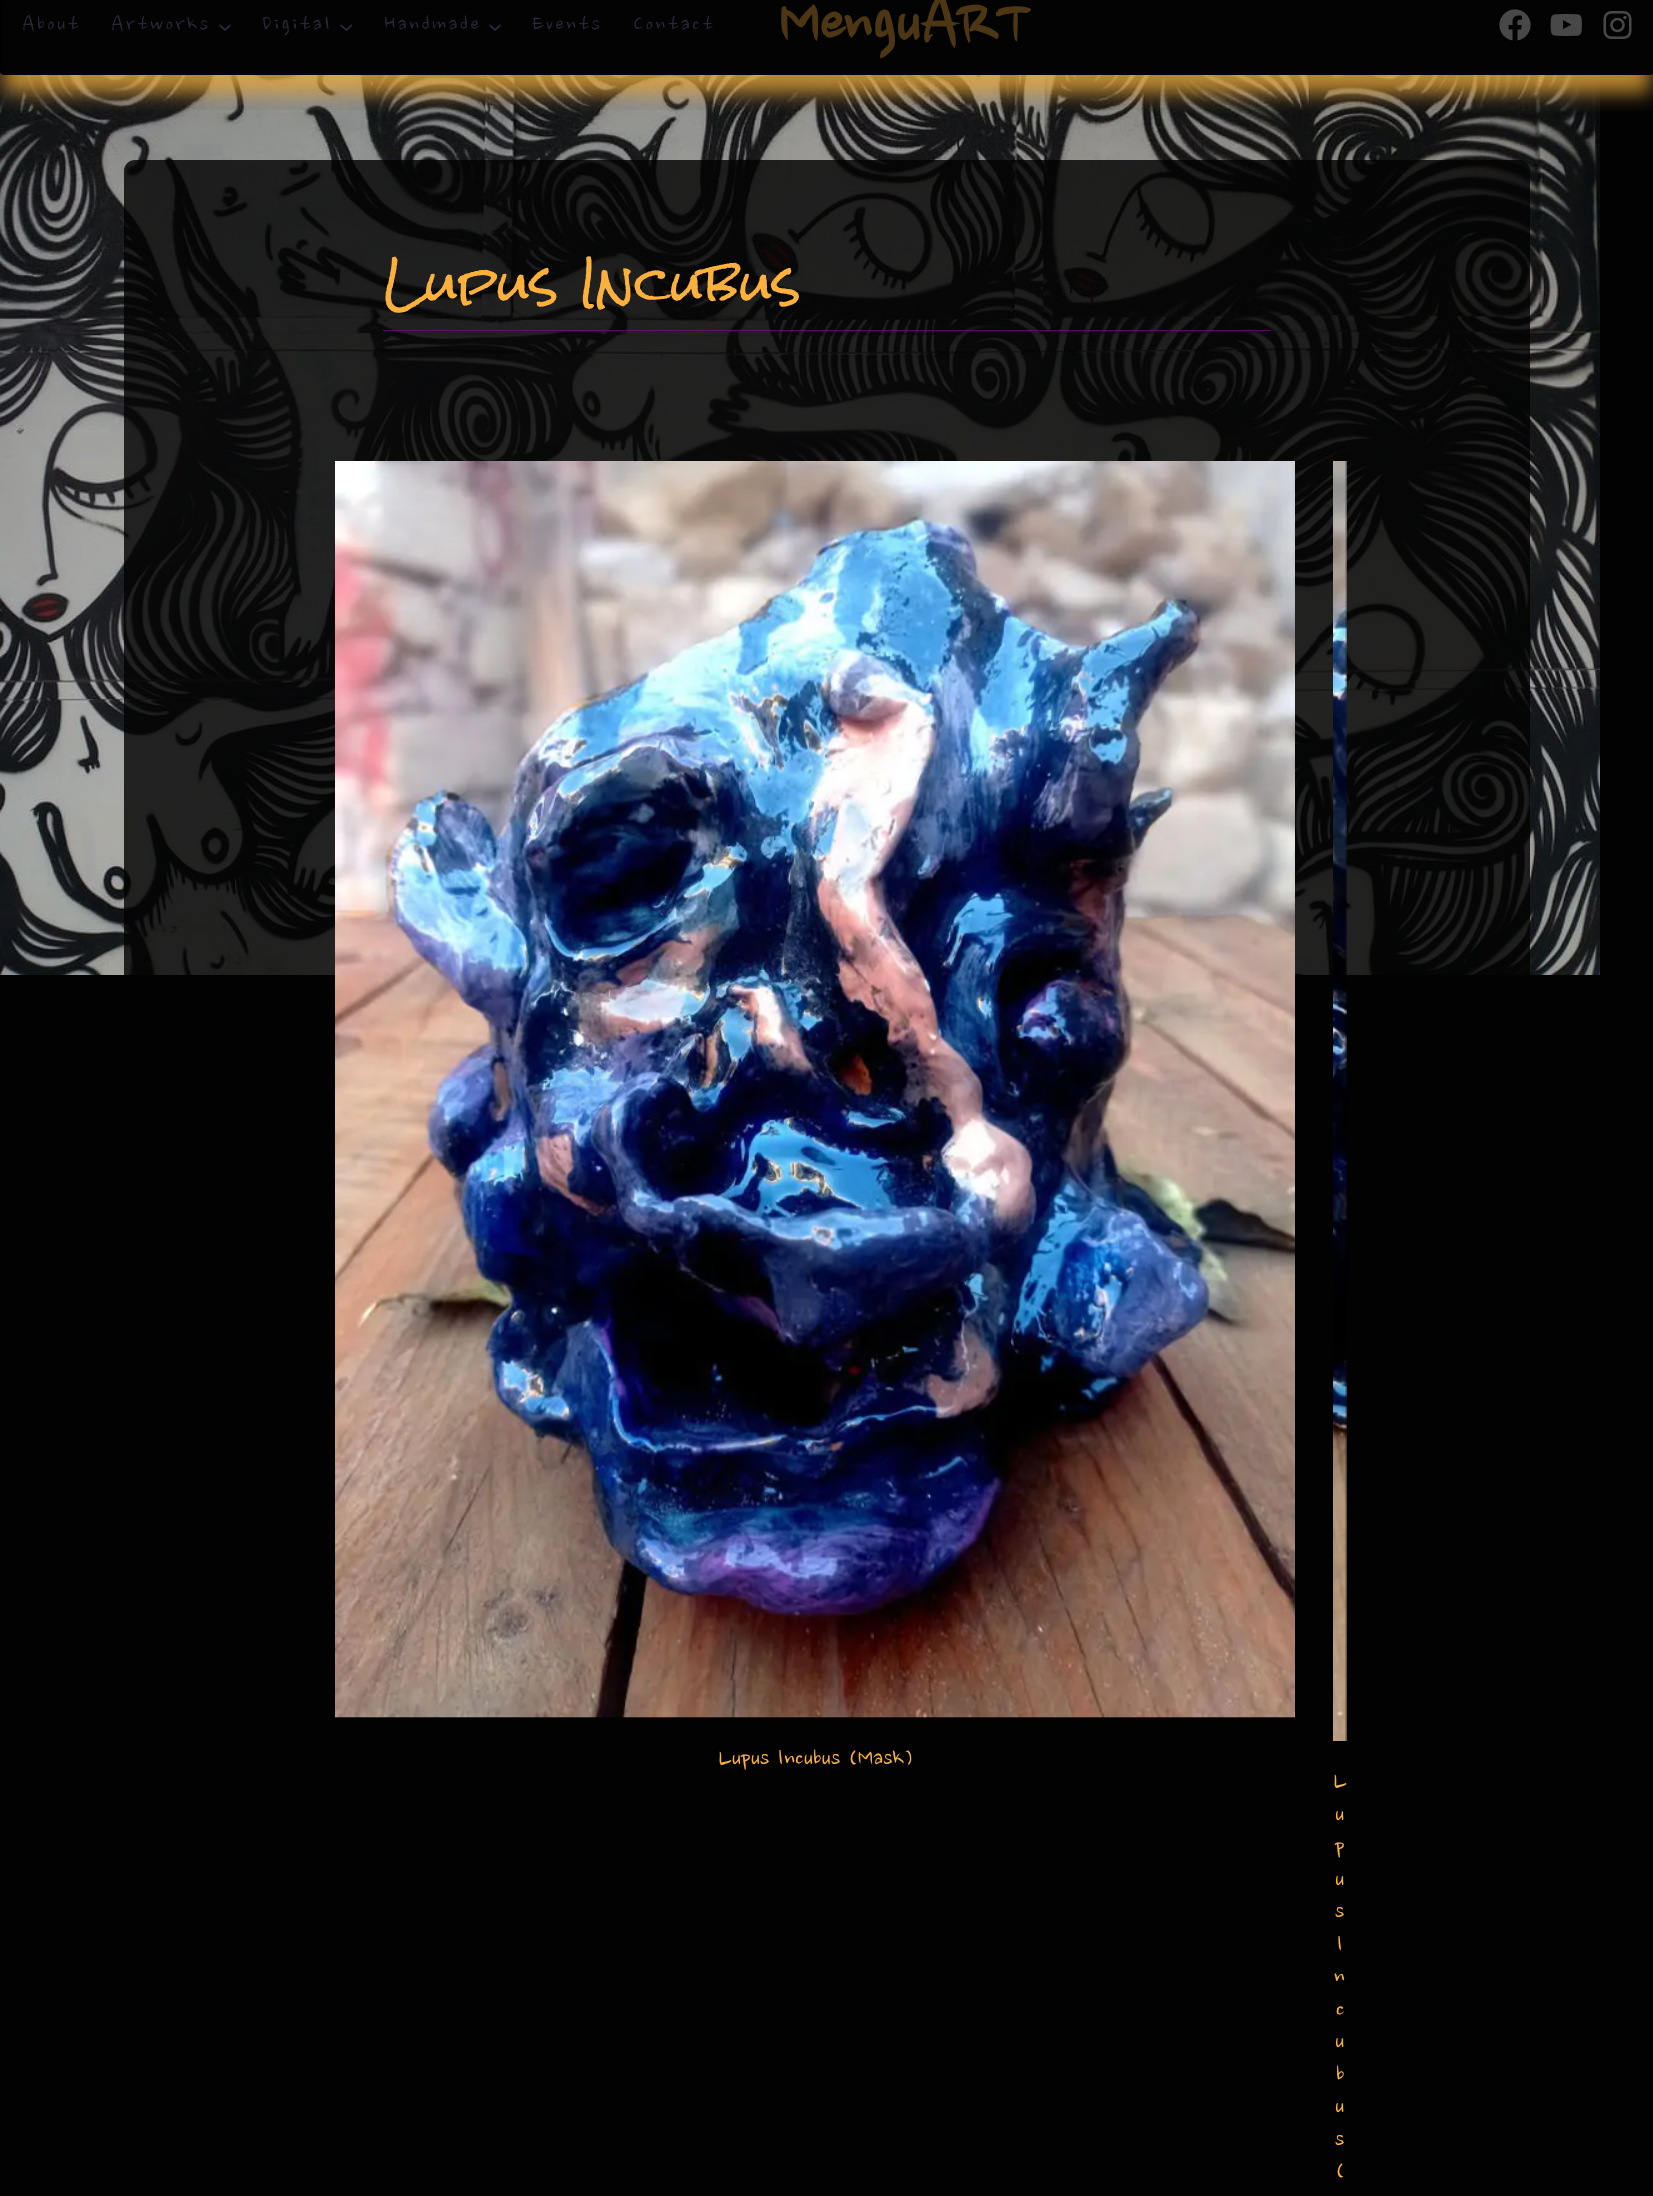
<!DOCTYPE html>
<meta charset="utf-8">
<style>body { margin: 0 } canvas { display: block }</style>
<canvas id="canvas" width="1653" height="2196"></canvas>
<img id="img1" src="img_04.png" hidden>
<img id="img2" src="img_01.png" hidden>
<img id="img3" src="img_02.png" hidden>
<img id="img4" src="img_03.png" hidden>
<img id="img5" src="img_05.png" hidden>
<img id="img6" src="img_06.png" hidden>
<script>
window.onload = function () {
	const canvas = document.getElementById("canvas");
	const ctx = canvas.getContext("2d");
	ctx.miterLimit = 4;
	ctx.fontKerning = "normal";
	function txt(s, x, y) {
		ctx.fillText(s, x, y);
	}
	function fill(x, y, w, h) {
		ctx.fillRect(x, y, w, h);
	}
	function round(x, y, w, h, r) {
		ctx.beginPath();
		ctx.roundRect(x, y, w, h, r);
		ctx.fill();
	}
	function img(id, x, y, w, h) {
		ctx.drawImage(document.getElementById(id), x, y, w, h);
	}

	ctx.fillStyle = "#020202";
	fill(0, 0, 1653, 2196);
	img("img1", 0, 75, 1600, 900);
	ctx.save();
	ctx.beginPath();
	ctx.moveTo(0, 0);
	ctx.lineTo(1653, 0);
	ctx.lineTo(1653, 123);
	ctx.lineTo(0, 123);
	ctx.closePath();
	ctx.moveTo(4, 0);
	ctx.lineTo(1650, 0);
	ctx.bezierCurveTo(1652, 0, 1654, 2, 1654, 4);
	ctx.lineTo(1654, 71);
	ctx.bezierCurveTo(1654, 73, 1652, 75, 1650, 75);
	ctx.lineTo(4, 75);
	ctx.bezierCurveTo(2, 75, 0, 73, 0, 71);
	ctx.lineTo(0, 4);
	ctx.bezierCurveTo(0, 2, 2, 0, 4, 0);
	ctx.closePath();
	ctx.clip("evenodd");
	ctx.fillStyle = "rgba(250, 177, 60, 0.78)";
	ctx.filter = "blur(9.5px)";
	ctx.beginPath();
	ctx.rect(4, 25, 1646, 68);
	ctx.fill();
	ctx.filter = "none";
	ctx.restore();
	ctx.fillStyle = "rgba(0, 0, 0, 0.5)";
	round(0, 0, 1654, 75, 4);
	ctx.fillStyle = "rgba(53, 50, 50, 0.06)";
	fill(3, 0, 1650, 110);
	ctx.beginPath();
	ctx.moveTo(219.5, 25);
	ctx.lineTo(225, 30);
	ctx.lineTo(230.5, 25);
	ctx.strokeStyle = "#262836";
	ctx.lineWidth = 1.9;
	ctx.stroke();
	ctx.beginPath();
	ctx.moveTo(340.5, 25);
	ctx.lineTo(346.5, 30);
	ctx.lineTo(352, 25);
	ctx.stroke();
	ctx.beginPath();
	ctx.moveTo(489.5, 25);
	ctx.lineTo(495, 30);
	ctx.lineTo(500.5, 25);
	ctx.stroke();
	img("img2", 1499, 9, 32, 32);
	img("img3", 1550, 14, 32, 22);
	img("img4", 1603, 11, 29, 28);
	ctx.fillStyle = "rgba(3, 3, 3, 0.81)";
	round(124, 160, 1406, 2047, 11);
	ctx.fillStyle = "rgba(116, 22, 135, 0.61)";
	fill(383, 330, 888, 1);
	img("img5", 335, 461, 960, 1257);
	img("img6", 1333, 461, 14, 1280);
	ctx.letterSpacing = "2.5px";
	ctx.font = "25px Nanum Brush Script";
	ctx.fillStyle = "#262836";
	txt("About", 22, 33);
	txt("Artworks", 111, 33);
	txt("Digital", 262, 33);
	txt("Handmade", 384, 33);
	txt("Events", 532, 33);
	txt("Contact", 633, 33);
	ctx.letterSpacing = "0px";
	ctx.font = "bold 72.5px Nanum Brush Script";
	ctx.fillStyle = "#4C3613";
	txt("MenguART", 778, 50);
	ctx.font = "50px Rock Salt";
	ctx.fillStyle = "#FBB13C";
	txt("Lupus Incubus", 383, 303);
	ctx.font = "27.5px Nanum Brush Script";
	txt("Lupus Incubus (Mask)", 718, 1768);
	txt("L", 1333, 1791);
	txt("u", 1335, 1824);
	txt("p", 1335, 1856);
	txt("u", 1335, 1889);
	txt("s", 1335, 1921);
	txt("I", 1336, 1954);
	txt("n", 1334, 1986);
	txt("c", 1336, 2019);
	txt("u", 1335, 2051);
	txt("b", 1336, 2084);
	txt("u", 1335, 2116);
	txt("s", 1335, 2149);
	txt("(", 1335, 2181);
};
</script>
